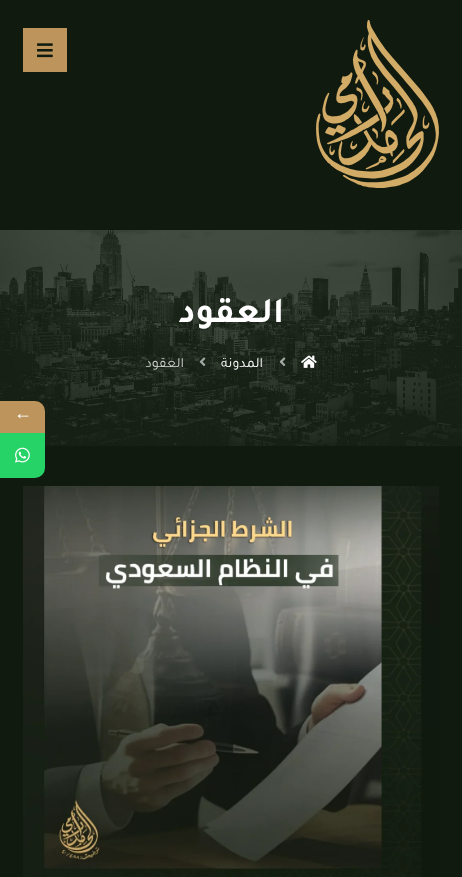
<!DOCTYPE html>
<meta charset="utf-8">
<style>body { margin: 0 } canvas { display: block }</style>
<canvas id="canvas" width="462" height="877"></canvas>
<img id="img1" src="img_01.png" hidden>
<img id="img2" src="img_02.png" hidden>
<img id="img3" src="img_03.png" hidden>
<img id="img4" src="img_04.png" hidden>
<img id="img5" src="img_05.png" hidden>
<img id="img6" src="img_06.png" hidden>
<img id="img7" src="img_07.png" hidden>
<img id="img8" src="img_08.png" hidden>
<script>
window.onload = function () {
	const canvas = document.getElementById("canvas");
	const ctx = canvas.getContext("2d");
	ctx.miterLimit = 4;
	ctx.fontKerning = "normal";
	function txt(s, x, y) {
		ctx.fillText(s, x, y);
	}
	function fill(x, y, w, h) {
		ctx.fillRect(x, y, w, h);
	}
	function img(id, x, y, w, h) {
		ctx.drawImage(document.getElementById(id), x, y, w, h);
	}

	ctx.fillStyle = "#101A0E";
	fill(0, 0, 462, 877);
	img("img1", 316, 20, 123, 168);
	ctx.fillStyle = "#BC945C";
	fill(23, 28, 44, 44);
	img("img2", 37, 43, 16, 15);
	img("img3", 0, 230, 462, 216);
	img("img4", 301, 355, 16, 13);
	img("img5", 279, 357, 7, 9);
	img("img6", 199, 357, 7, 9);
	img("img7", 23, 486, 416, 391);
	ctx.beginPath();
	ctx.roundRect(0, 401, 45, 32, [0, 10, 0, 0]);
	ctx.fill();
	ctx.fillStyle = "#26D367";
	ctx.beginPath();
	ctx.roundRect(0, 433, 45, 45, [0, 0, 10, 0]);
	ctx.fill();
	img("img8", 15, 447, 15, 16);
	ctx.direction = "rtl";
	ctx.font = "bold 36px Tajawal";
	ctx.fillStyle = "#FFFFFF";
	txt("العقود", 284, 322);
	ctx.font = "14px Tajawal";
	txt("المدونة", 263, 367);
	ctx.fillStyle = "#D2D4D2";
	txt("العقود", 184, 367);
	ctx.direction = "ltr";
	ctx.font = "18px Liberation Serif";
	ctx.fillStyle = "#FFFFFF";
	txt("←", 14, 419);
};
</script>
